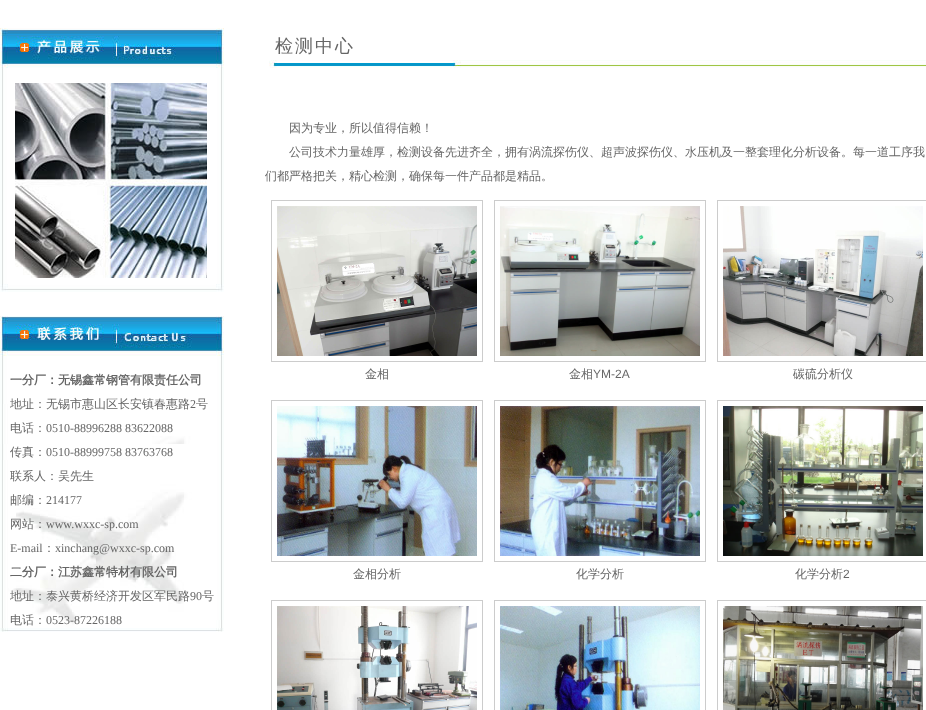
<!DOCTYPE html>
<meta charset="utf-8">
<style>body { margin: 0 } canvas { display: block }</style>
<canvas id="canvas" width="926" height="710"></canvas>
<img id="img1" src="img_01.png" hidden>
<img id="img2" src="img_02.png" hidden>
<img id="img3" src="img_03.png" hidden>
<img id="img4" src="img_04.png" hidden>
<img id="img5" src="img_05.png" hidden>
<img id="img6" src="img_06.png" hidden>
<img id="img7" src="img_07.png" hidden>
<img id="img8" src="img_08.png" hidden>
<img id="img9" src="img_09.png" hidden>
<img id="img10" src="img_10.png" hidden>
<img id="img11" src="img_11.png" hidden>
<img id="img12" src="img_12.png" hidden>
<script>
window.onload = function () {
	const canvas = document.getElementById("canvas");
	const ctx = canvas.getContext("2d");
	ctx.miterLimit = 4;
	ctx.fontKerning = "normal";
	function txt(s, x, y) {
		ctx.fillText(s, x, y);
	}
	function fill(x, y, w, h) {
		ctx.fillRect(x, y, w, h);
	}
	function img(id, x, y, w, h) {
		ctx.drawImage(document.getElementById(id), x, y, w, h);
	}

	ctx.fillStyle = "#FFFFFF";
	fill(0, 0, 926, 710);
	img("img1", 0, 28, 224, 604);
	img("img2", 15, 83, 192, 195);
	img("img3", 269, 60, 657, 8);
	ctx.strokeStyle = "#CCCCCC";
	ctx.strokeRect(271.5, 200.5, 211, 161);
	img("img4", 277, 206, 200, 150);
	ctx.strokeRect(494.5, 200.5, 211, 161);
	img("img5", 500, 206, 200, 150);
	ctx.strokeRect(717.5, 200.5, 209, 161);
	img("img6", 723, 206, 200, 150);
	ctx.strokeRect(271.5, 400.5, 211, 161);
	img("img7", 277, 406, 200, 150);
	ctx.strokeRect(494.5, 400.5, 211, 161);
	img("img8", 500, 406, 200, 150);
	ctx.strokeRect(717.5, 400.5, 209, 161);
	img("img9", 723, 406, 200, 150);
	ctx.strokeRect(271.5, 600.5, 211, 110);
	img("img10", 277, 606, 200, 104);
	ctx.strokeRect(494.5, 600.5, 211, 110);
	img("img11", 500, 606, 200, 104);
	ctx.strokeRect(717.5, 600.5, 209, 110);
	img("img12", 723, 606, 200, 104);
	ctx.font = "bold 12px WenQuanYi Zen Hei";
	ctx.fillStyle = "#666666";
	txt("一分厂：无锡鑫常钢管有限责任公司", 10, 384);
	ctx.font = "500 12px WenQuanYi Zen Hei";
	txt("地址：无锡市惠山区长安镇春惠路", 10, 408);
	ctx.font = "12px Liberation Serif";
	txt("2", 190, 408);
	ctx.font = "500 12px WenQuanYi Zen Hei";
	txt("号", 196, 408);
	txt("电话：", 10, 432);
	ctx.font = "12px Liberation Serif";
	txt("0510-88996288 83622088", 46, 432);
	ctx.font = "500 12px WenQuanYi Zen Hei";
	txt("传真：", 10, 456);
	ctx.font = "12px Liberation Serif";
	txt("0510-88999758 83763768", 46, 456);
	ctx.font = "500 12px WenQuanYi Zen Hei";
	txt("联系人：吴先生", 10, 480);
	txt("邮编：", 10, 504);
	ctx.font = "12px Liberation Serif";
	txt("214177", 46, 504);
	ctx.font = "500 12px WenQuanYi Zen Hei";
	txt("网站：", 10, 528);
	ctx.font = "12px Liberation Serif";
	txt("www.wxxc-sp.com", 46, 528);
	txt("E-mail", 10, 552);
	ctx.font = "500 12px WenQuanYi Zen Hei";
	txt("：", 43, 552);
	ctx.font = "12px Liberation Serif";
	txt("xinchang@wxxc-sp.com", 55, 552);
	ctx.font = "bold 12px WenQuanYi Zen Hei";
	txt("二分厂：江苏鑫常特材有限公司", 10, 576);
	ctx.font = "500 12px WenQuanYi Zen Hei";
	txt("地址：泰兴黄桥经济开发区军民路", 10, 600);
	ctx.font = "12px Liberation Serif";
	txt("90", 190, 600);
	ctx.font = "500 12px WenQuanYi Zen Hei";
	txt("号", 202, 600);
	txt("电话：", 10, 624);
	ctx.font = "12px Liberation Serif";
	txt("0523-87226188", 46, 624);
	ctx.letterSpacing = "2px";
	ctx.font = "500 18px WenQuanYi Zen Hei";
	txt("检测中心", 275, 52);
	ctx.letterSpacing = "0px";
	ctx.font = "500 12px WenQuanYi Zen Hei";
	txt("因为专业，所以值得信赖！", 289, 132);
	txt("公司技术力量雄厚，检测设备先进齐全，拥有涡流探伤仪、超声波探伤仪、水压机及一整套理化分析设备。每一道工序我", 289, 156);
	txt("们都严格把关，精心检测，确保每一件产品都是精品。", 265, 180);
	txt("金相", 365, 378);
	txt("金相", 569, 378);
	ctx.font = "12px Liberation Sans";
	txt("YM-2A", 593, 378);
	ctx.font = "500 12px WenQuanYi Zen Hei";
	txt("碳硫分析仪", 793, 378);
	txt("金相分析", 353, 578);
	txt("化学分析", 576, 578);
	txt("化学分析", 795, 578);
	ctx.font = "12px Liberation Sans";
	txt("2", 843, 578);
};
</script>
